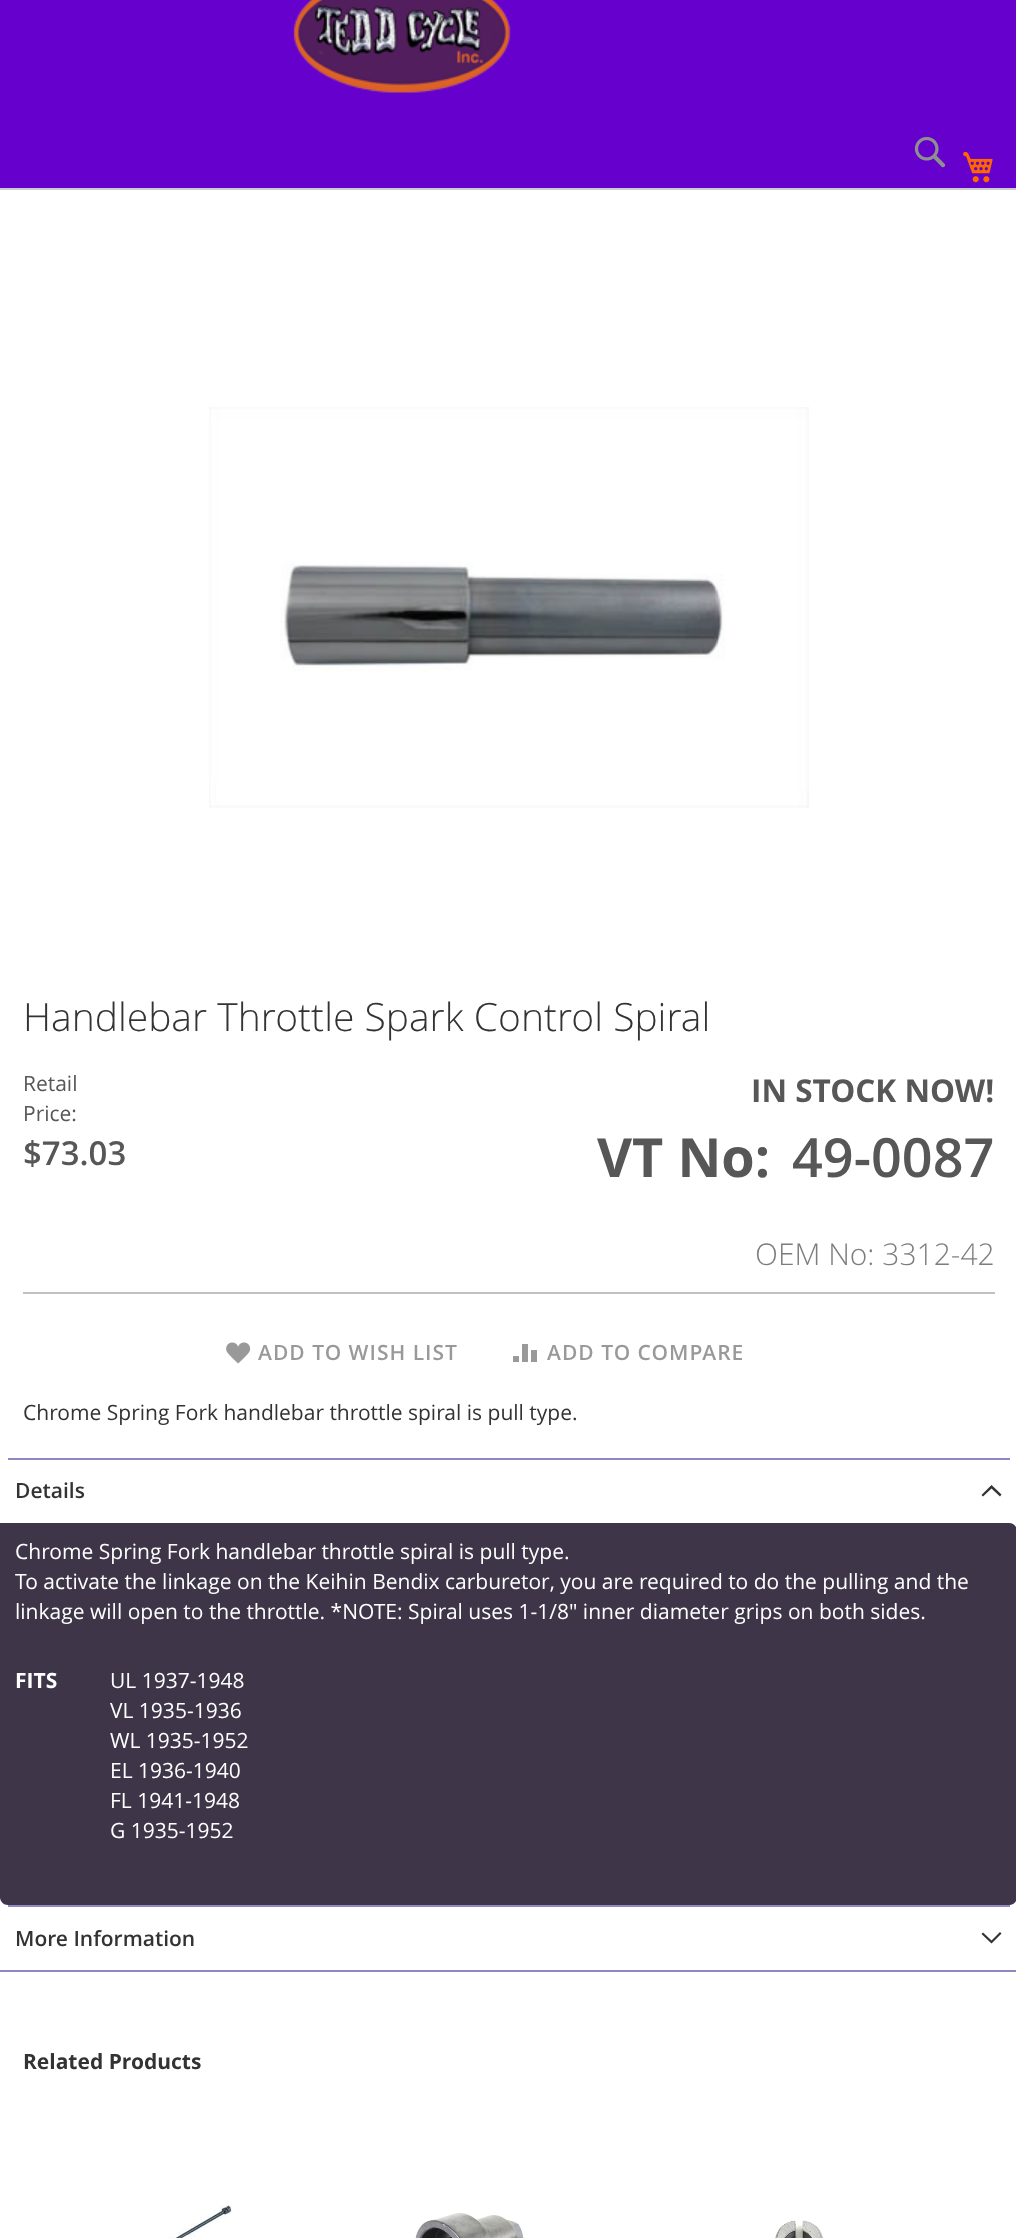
<!DOCTYPE html>
<meta charset="utf-8">
<style>body { margin: 0 } canvas { display: block }</style>
<canvas id="canvas" width="1016" height="2238"></canvas>
<img id="img1" src="img_01.png" hidden>
<img id="img2" src="img_02.png" hidden>
<img id="img3" src="img_03.png" hidden>
<img id="img4" src="img_04.png" hidden>
<img id="img5" src="img_05.png" hidden>
<img id="img6" src="img_06.png" hidden>
<img id="img7" src="img_07.png" hidden>
<img id="img8" src="img_08.png" hidden>
<img id="img9" src="img_09.png" hidden>
<script>
window.onload = function () {
	const canvas = document.getElementById("canvas");
	const ctx = canvas.getContext("2d");
	ctx.miterLimit = 4;
	ctx.fontKerning = "normal";
	function txt(s, x, y) {
		ctx.fillText(s, x, y);
	}
	function fill(x, y, w, h) {
		ctx.fillRect(x, y, w, h);
	}
	function img(id, x, y, w, h) {
		ctx.drawImage(document.getElementById(id), x, y, w, h);
	}

	ctx.fillStyle = "#FFFFFF";
	fill(0, 0, 1016, 2238);
	ctx.fillStyle = "#6600CC";
	fill(0, 0, 1016, 188);
	ctx.fillStyle = "#CCCCCC";
	fill(0, 188, 1016, 2);
	img("img1", 293, 0, 218, 93);
	img("img2", 914, 136, 32, 32);
	img("img3", 963, 151, 30, 32);
	img("img4", 209, 407, 600, 401);
	ctx.fillStyle = "#C1C1C1";
	fill(23, 1292, 972, 2);
	img("img5", 226, 1342, 25, 22);
	img("img6", 513, 1344, 24, 18);
	ctx.fillStyle = "#9287C3";
	fill(0, 1970, 1016, 2);
	fill(8, 1458, 1002, 2);
	ctx.fillStyle = "#333333";
	ctx.beginPath();
	ctx.moveTo(991.5, 1488.5);
	ctx.lineTo(1000, 1496.5);
	ctx.lineTo(1001.5, 1494.5);
	ctx.lineTo(991.5, 1485);
	ctx.lineTo(981.5, 1495);
	ctx.lineTo(983, 1496.5);
	ctx.closePath();
	ctx.fill();
	ctx.fillStyle = "#3E3548";
	ctx.beginPath();
	ctx.moveTo(0, 1523);
	ctx.lineTo(1009, 1523);
	ctx.bezierCurveTo(1013.5, 1523, 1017, 1526.5, 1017, 1531);
	ctx.lineTo(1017, 1897);
	ctx.bezierCurveTo(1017, 1901.5, 1013.5, 1905, 1009, 1905);
	ctx.lineTo(8, 1905);
	ctx.bezierCurveTo(3.5, 1905, 0, 1901.5, 0, 1897);
	ctx.closePath();
	ctx.fill();
	ctx.fillStyle = "#9287C3";
	fill(8, 1905, 1002, 2);
	ctx.fillStyle = "#333333";
	ctx.beginPath();
	ctx.moveTo(991.5, 1940.5);
	ctx.lineTo(983, 1932.5);
	ctx.lineTo(981.5, 1934);
	ctx.lineTo(991.5, 1943.5);
	ctx.lineTo(1001.5, 1933.5);
	ctx.lineTo(1000, 1932);
	ctx.closePath();
	ctx.fill();
	img("img7", 168, 2205, 64, 33);
	img("img8", 415, 2212, 109, 26);
	img("img9", 775, 2220, 48, 18);
	ctx.font = "300 39px Open Sans";
	txt("Handlebar Throttle Spark Control Spiral", 23, 1031);
	ctx.font = "21px Open Sans";
	ctx.fillStyle = "#575757";
	txt("Retail", 23, 1091);
	txt("Price:", 23, 1121);
	ctx.font = "600 33px Open Sans";
	txt("$73.03", 23, 1165);
	ctx.font = "bold 31.5px Open Sans";
	txt("IN STOCK NOW!", 751, 1102);
	ctx.font = "bold 54px Open Sans";
	txt("VT No:", 597, 1177);
	ctx.font = "600 54px Open Sans";
	txt("49-0087", 792, 1177);
	ctx.font = "300 30px Open Sans";
	ctx.fillStyle = "#7D7D7D";
	txt("OEM No: 3312-42", 755, 1265);
	ctx.letterSpacing = "1px";
	ctx.font = "600 21px Open Sans";
	ctx.fillStyle = "#999999";
	txt("ADD TO WISH LIST", 258, 1360);
	txt("ADD TO COMPARE", 547, 1360);
	ctx.letterSpacing = "0px";
	ctx.font = "21px Open Sans";
	ctx.fillStyle = "#333333";
	txt("Chrome Spring Fork handlebar throttle spiral is pull type.", 23, 1420);
	ctx.font = "600 21px Open Sans";
	txt("Details", 15, 1498);
	ctx.font = "21px Open Sans";
	ctx.fillStyle = "#FFFFFF";
	txt("Chrome Spring Fork handlebar throttle spiral is pull type.", 15, 1559);
	txt("To activate the linkage on the Keihin Bendix carburetor, you are required to do the pulling and the", 15, 1589);
	txt("linkage will open to the throttle. *NOTE: Spiral uses 1-1/8\" inner diameter grips on both sides.", 15, 1619);
	ctx.font = "bold 21px Open Sans";
	txt("FITS", 15, 1688);
	ctx.font = "21px Open Sans";
	txt("UL 1937-1948", 110, 1688);
	txt("VL 1935-1936", 110, 1718);
	txt("WL 1935-1952", 110, 1748);
	txt("EL 1936-1940", 110, 1778);
	txt("FL 1941-1948", 110, 1808);
	txt("G 1935-1952", 110, 1838);
	ctx.font = "600 21px Open Sans";
	ctx.fillStyle = "#333333";
	txt("More Information", 15, 1946);
	ctx.font = "bold 21px Open Sans";
	txt("Related Products", 23, 2069);
};
</script>
